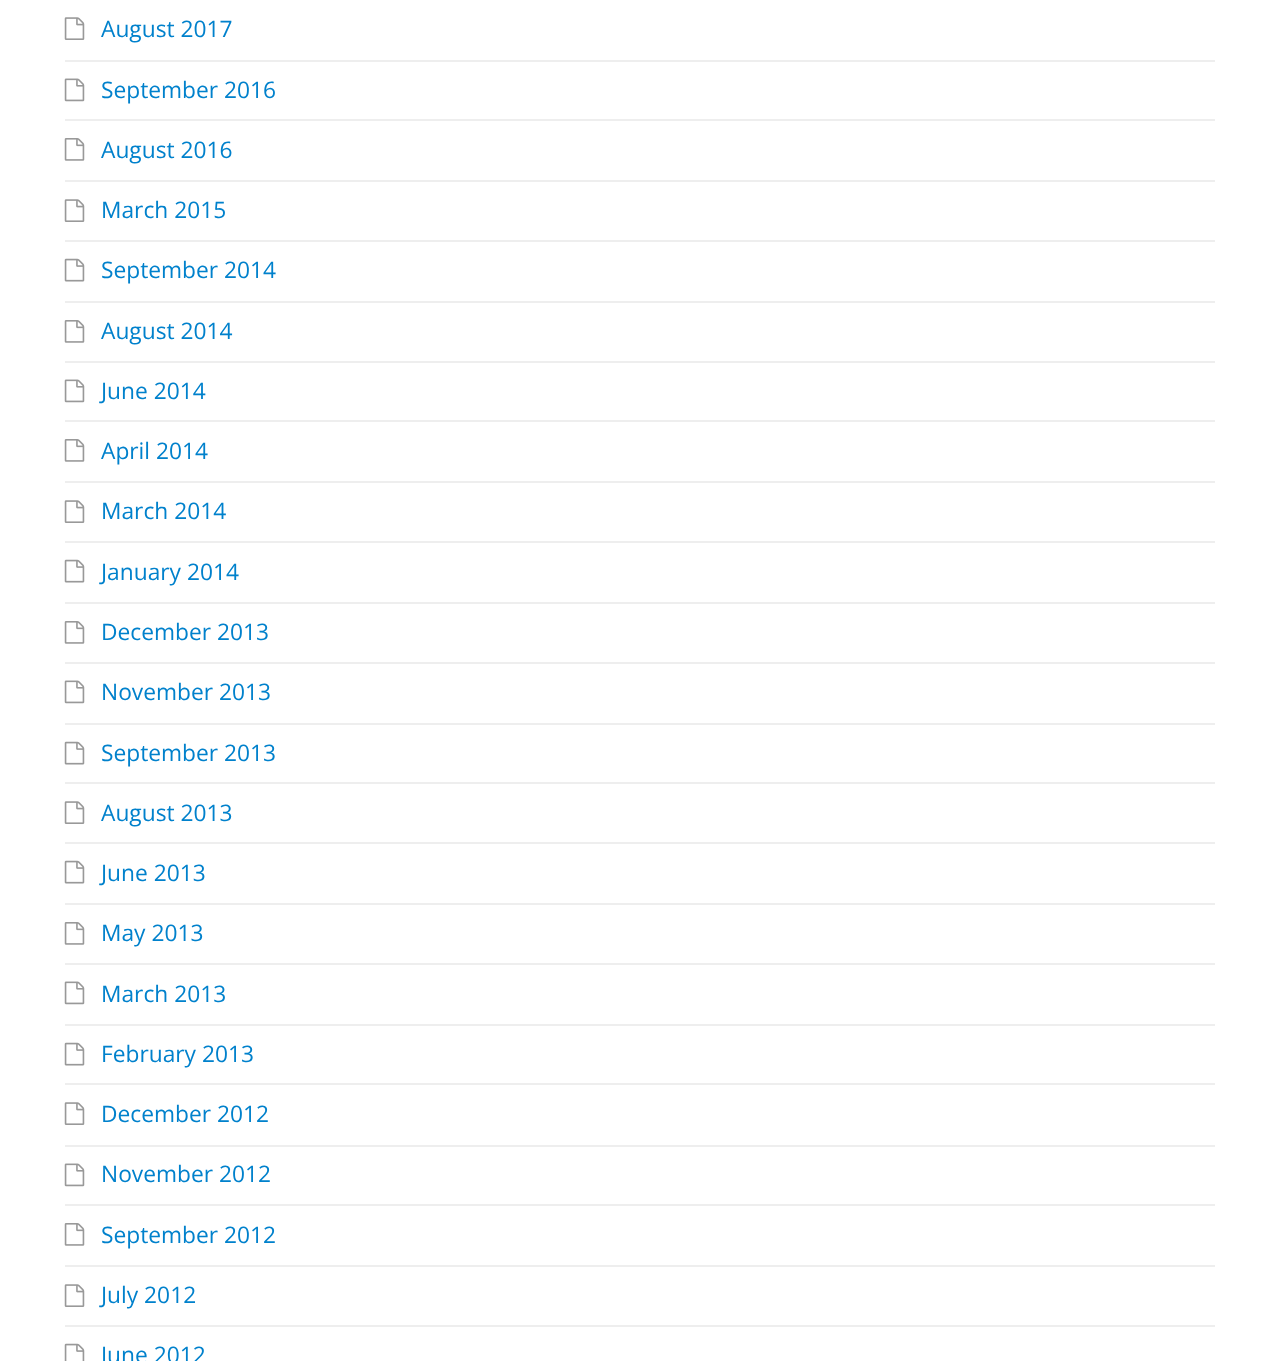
<!DOCTYPE html>
<meta charset="utf-8">
<style>body { margin: 0 } canvas { display: block }</style>
<canvas id="canvas" width="1279" height="1361"></canvas>
<img id="img1" src="img_01.png" hidden>
<img id="img2" src="img_02.png" hidden>
<img id="img3" src="img_03.png" hidden>
<img id="img4" src="img_04.png" hidden>
<img id="img5" src="img_05.png" hidden>
<img id="img6" src="img_06.png" hidden>
<img id="img7" src="img_07.png" hidden>
<script>
window.onload = function () {
	const canvas = document.getElementById("canvas");
	const ctx = canvas.getContext("2d");
	ctx.miterLimit = 4;
	ctx.fontKerning = "normal";
	function txt(s, x, y) {
		ctx.fillText(s, x, y);
	}
	function fill(x, y, w, h) {
		ctx.fillRect(x, y, w, h);
	}
	function img(id, x, y, w, h) {
		ctx.drawImage(document.getElementById(id), x, y, w, h);
	}

	ctx.fillStyle = "#FFFFFF";
	fill(0, 0, 1279, 1361);
	ctx.fillStyle = "#EEEEEE";
	fill(65, 60, 1150, 2);
	img("img1", 64, 17, 21, 23);
	fill(65, 119, 1150, 2);
	img("img2", 64, 78, 21, 24);
	fill(65, 180, 1150, 2);
	img("img3", 64, 138, 21, 23);
	fill(65, 240, 1150, 2);
	img("img1", 64, 199, 21, 23);
	fill(65, 301, 1150, 2);
	img("img4", 64, 258, 21, 24);
	fill(65, 361, 1150, 2);
	img("img3", 64, 320, 21, 23);
	fill(65, 420, 1150, 2);
	img("img2", 64, 379, 21, 24);
	fill(65, 481, 1150, 2);
	img("img3", 64, 439, 21, 23);
	fill(65, 541, 1150, 2);
	img("img1", 64, 500, 21, 23);
	fill(65, 602, 1150, 2);
	img("img4", 64, 559, 21, 24);
	fill(65, 662, 1150, 2);
	img("img3", 64, 621, 21, 23);
	fill(65, 723, 1150, 2);
	img("img2", 64, 680, 21, 24);
	fill(65, 782, 1150, 2);
	img("img4", 64, 741, 21, 24);
	fill(65, 842, 1150, 2);
	img("img1", 64, 801, 21, 23);
	fill(65, 903, 1150, 2);
	img("img4", 64, 860, 21, 24);
	fill(65, 963, 1150, 2);
	img("img5", 64, 922, 21, 23);
	fill(65, 1024, 1150, 2);
	img("img6", 64, 981, 21, 24);
	fill(65, 1083, 1150, 2);
	img("img4", 64, 1042, 21, 24);
	fill(65, 1145, 1150, 2);
	img("img1", 64, 1102, 21, 23);
	fill(65, 1204, 1150, 2);
	img("img2", 64, 1163, 21, 24);
	fill(65, 1265, 1150, 2);
	img("img3", 64, 1223, 21, 23);
	fill(65, 1325, 1150, 2);
	img("img1", 64, 1284, 21, 23);
	img("img7", 64, 1343, 21, 18);
	ctx.font = "22.75px Open Sans";
	ctx.fillStyle = "#0081CC";
	txt("August 2017", 101, 37);
	txt("September 2016", 101, 98);
	txt("August 2016", 101, 158);
	txt("March 2015", 101, 218);
	txt("September 2014", 101, 278);
	txt("August 2014", 101, 339);
	txt("June 2014", 101, 399);
	txt("April 2014", 101, 459);
	txt("March 2014", 101, 519);
	txt("January 2014", 101, 580);
	txt("December 2013", 101, 640);
	txt("November 2013", 101, 700);
	txt("September 2013", 101, 761);
	txt("August 2013", 101, 821);
	txt("June 2013", 101, 881);
	txt("May 2013", 101, 941);
	txt("March 2013", 101, 1002);
	txt("February 2013", 101, 1062);
	txt("December 2012", 101, 1122);
	txt("November 2012", 101, 1182);
	txt("September 2012", 101, 1243);
	txt("July 2012", 101, 1303);
	txt("June 2012", 101, 1363);
};
</script>
